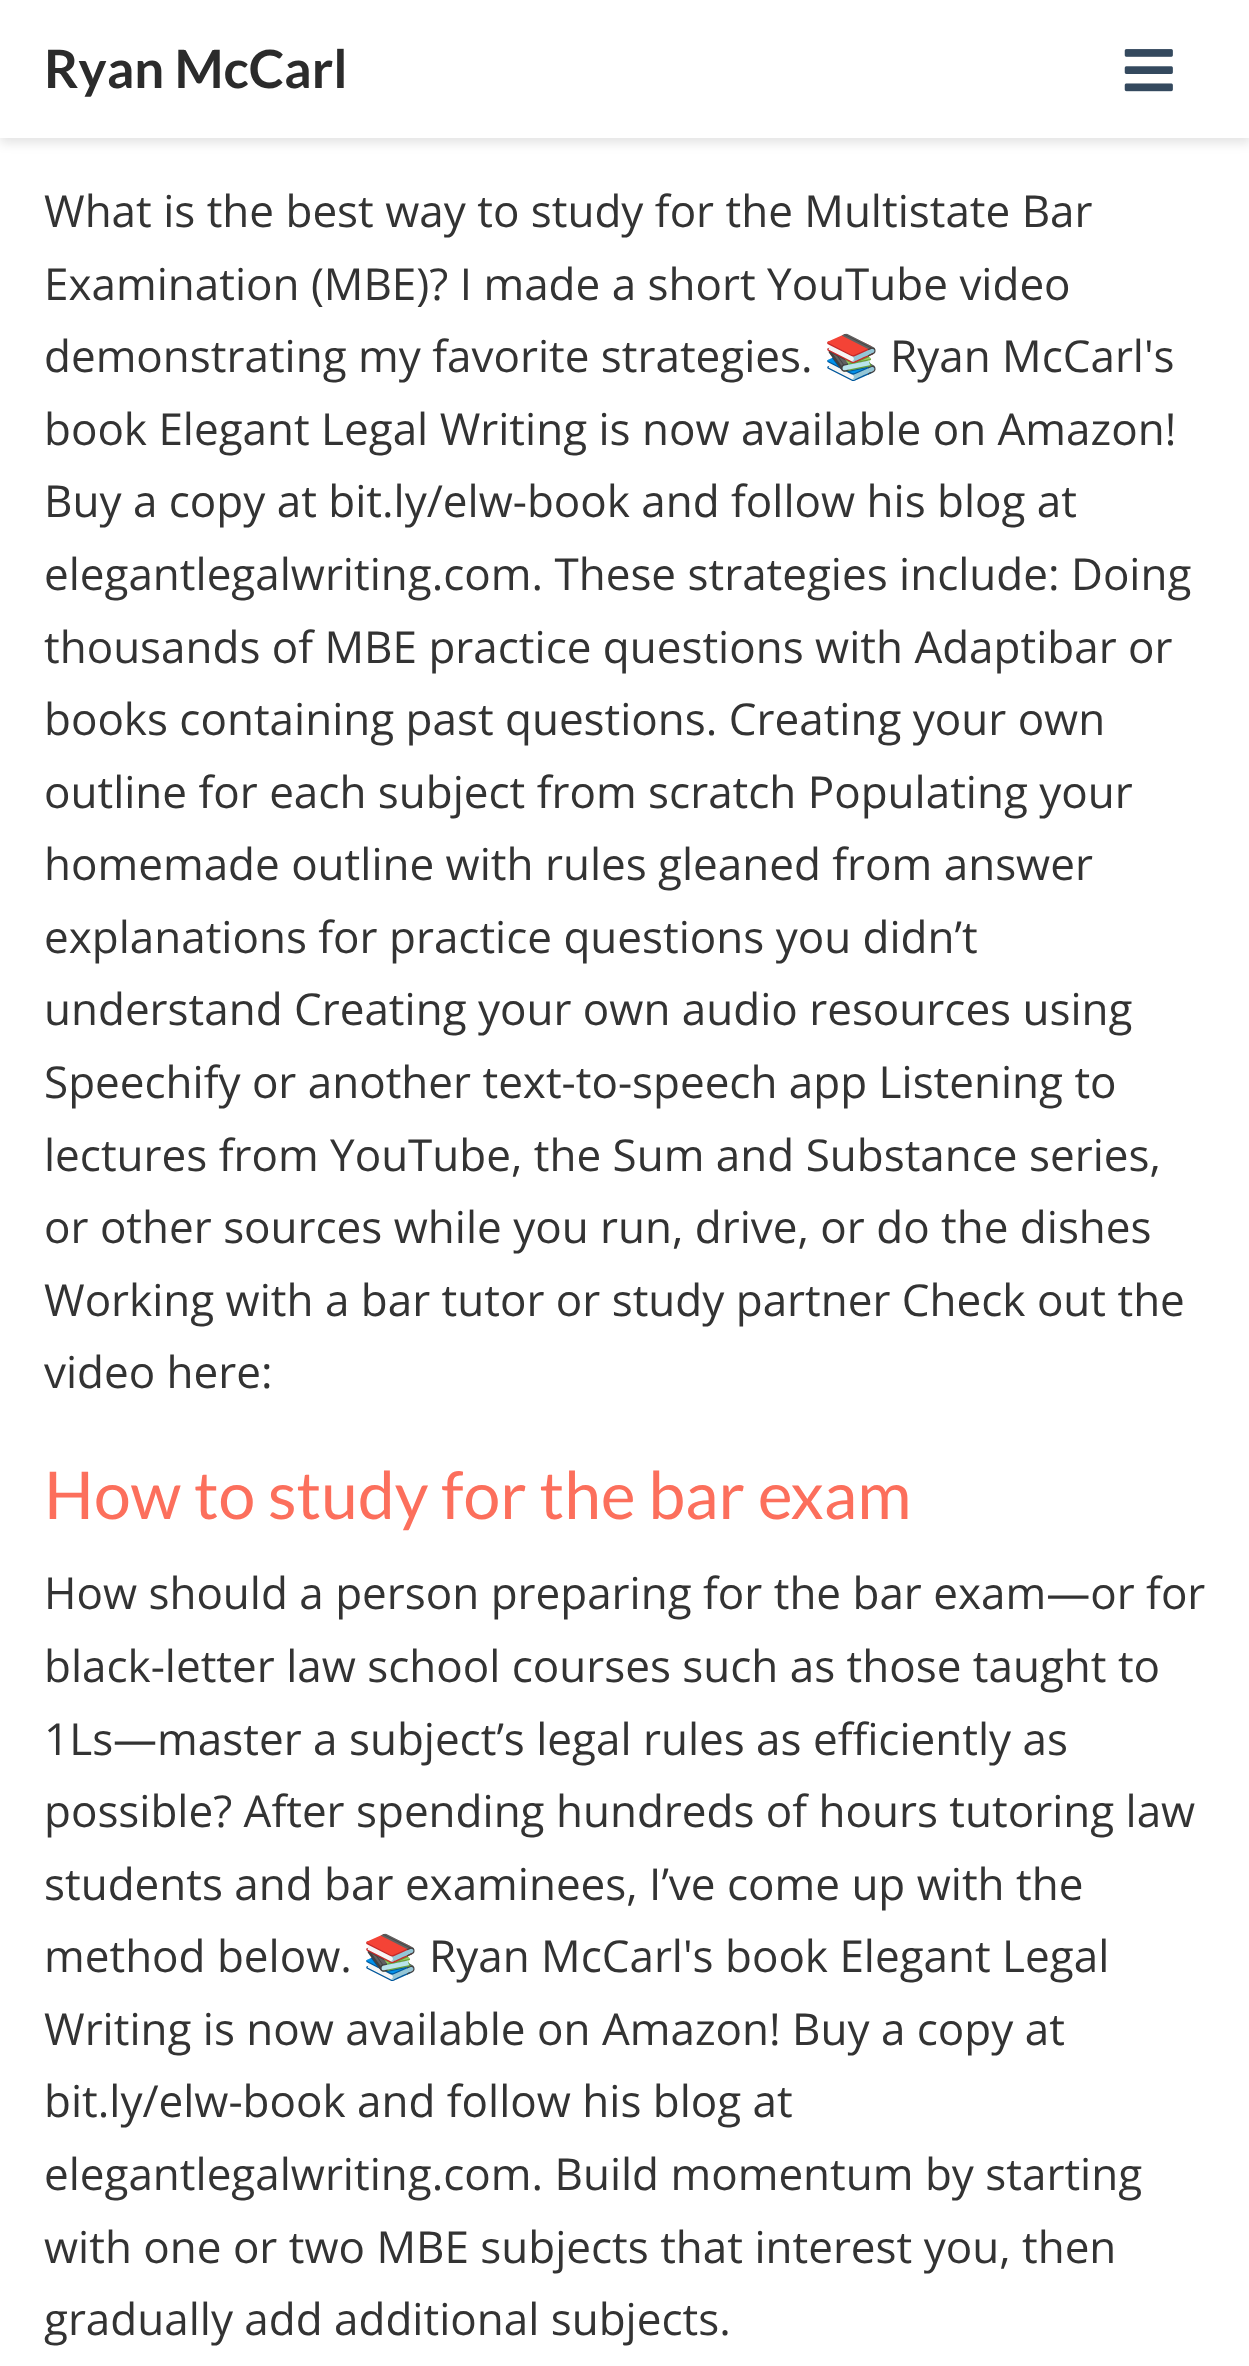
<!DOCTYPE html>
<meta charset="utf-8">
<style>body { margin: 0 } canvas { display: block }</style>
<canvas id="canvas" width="1249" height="2366"></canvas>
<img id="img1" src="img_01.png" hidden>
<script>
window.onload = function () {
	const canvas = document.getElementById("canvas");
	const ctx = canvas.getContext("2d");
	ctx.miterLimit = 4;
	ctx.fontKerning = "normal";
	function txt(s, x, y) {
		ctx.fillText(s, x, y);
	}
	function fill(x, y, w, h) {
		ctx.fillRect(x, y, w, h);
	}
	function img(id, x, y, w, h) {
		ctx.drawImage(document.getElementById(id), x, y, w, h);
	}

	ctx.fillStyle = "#FFFFFF";
	fill(0, 0, 1249, 2366);
	ctx.fillStyle = "rgba(0, 0, 0, 0.11)";
	ctx.filter = "blur(5.5px)";
	ctx.beginPath();
	ctx.rect(0, 6, 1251, 137);
	ctx.fill();
	ctx.filter = "none";
	ctx.fillStyle = "#FFFFFF";
	fill(0, 0, 1249, 138);
	img("img1", 1124, 49, 49, 43);
	ctx.font = "bold 52.75px Lato";
	ctx.fillStyle = "#2B2B2B";
	txt("Ryan McCarl", 44, 88);
	ctx.font = "44px Open Sans";
	ctx.fillStyle = "#333333";
	txt("What is the best way to study for the Multistate Bar", 44, 227);
	txt("Examination (MBE)? I made a short YouTube video", 44, 300);
	txt("demonstrating my favorite strategies.", 44, 372);
	ctx.font = "44px Noto Color Emoji";
	txt("📚", 824, 372);
	ctx.font = "44px Open Sans";
	txt("Ryan McCarl's", 890, 372);
	txt("book Elegant Legal Writing is now available on Amazon!", 44, 445);
	txt("Buy a copy at bit.ly/elw-book and follow his blog at", 44, 517);
	txt("elegantlegalwriting.com. These strategies include: Doing", 44, 590);
	txt("thousands of MBE practice questions with Adaptibar or", 44, 663);
	txt("books containing past questions. Creating your own", 44, 735);
	txt("outline for each subject from scratch Populating your", 44, 808);
	txt("homemade outline with rules gleaned from answer", 44, 880);
	txt("explanations for practice questions you didn’t", 44, 953);
	txt("understand Creating your own audio resources using", 44, 1025);
	txt("Speechify or another text-to-speech app Listening to", 44, 1098);
	txt("lectures from YouTube, the Sum and Substance series,", 44, 1171);
	txt("or other sources while you run, drive, or do the dishes", 44, 1243);
	txt("Working with a bar tutor or study partner Check out the", 44, 1316);
	txt("video here:", 44, 1388);
	ctx.font = "66px Lato";
	ctx.fillStyle = "#FC6F5C";
	txt("How to study for the bar exam", 44, 1519);
	ctx.font = "44px Open Sans";
	ctx.fillStyle = "#333333";
	txt("How should a person preparing for the bar exam—or for", 44, 1609);
	txt("black-letter law school courses such as those taught to", 44, 1682);
	txt("1Ls—master a subject’s legal rules as efficiently as", 44, 1755);
	txt("possible? After spending hundreds of hours tutoring law", 44, 1827);
	txt("students and bar examinees, I’ve come up with the", 44, 1900);
	txt("method below.", 44, 1972);
	ctx.font = "44px Noto Color Emoji";
	txt("📚", 363, 1972);
	ctx.font = "44px Open Sans";
	txt("Ryan McCarl's book Elegant Legal", 429, 1972);
	txt("Writing is now available on Amazon! Buy a copy at", 44, 2045);
	txt("bit.ly/elw-book and follow his blog at", 44, 2117);
	txt("elegantlegalwriting.com. Build momentum by starting", 44, 2190);
	txt("with one or two MBE subjects that interest you, then", 44, 2263);
	txt("gradually add additional subjects.", 44, 2335);
};
</script>
